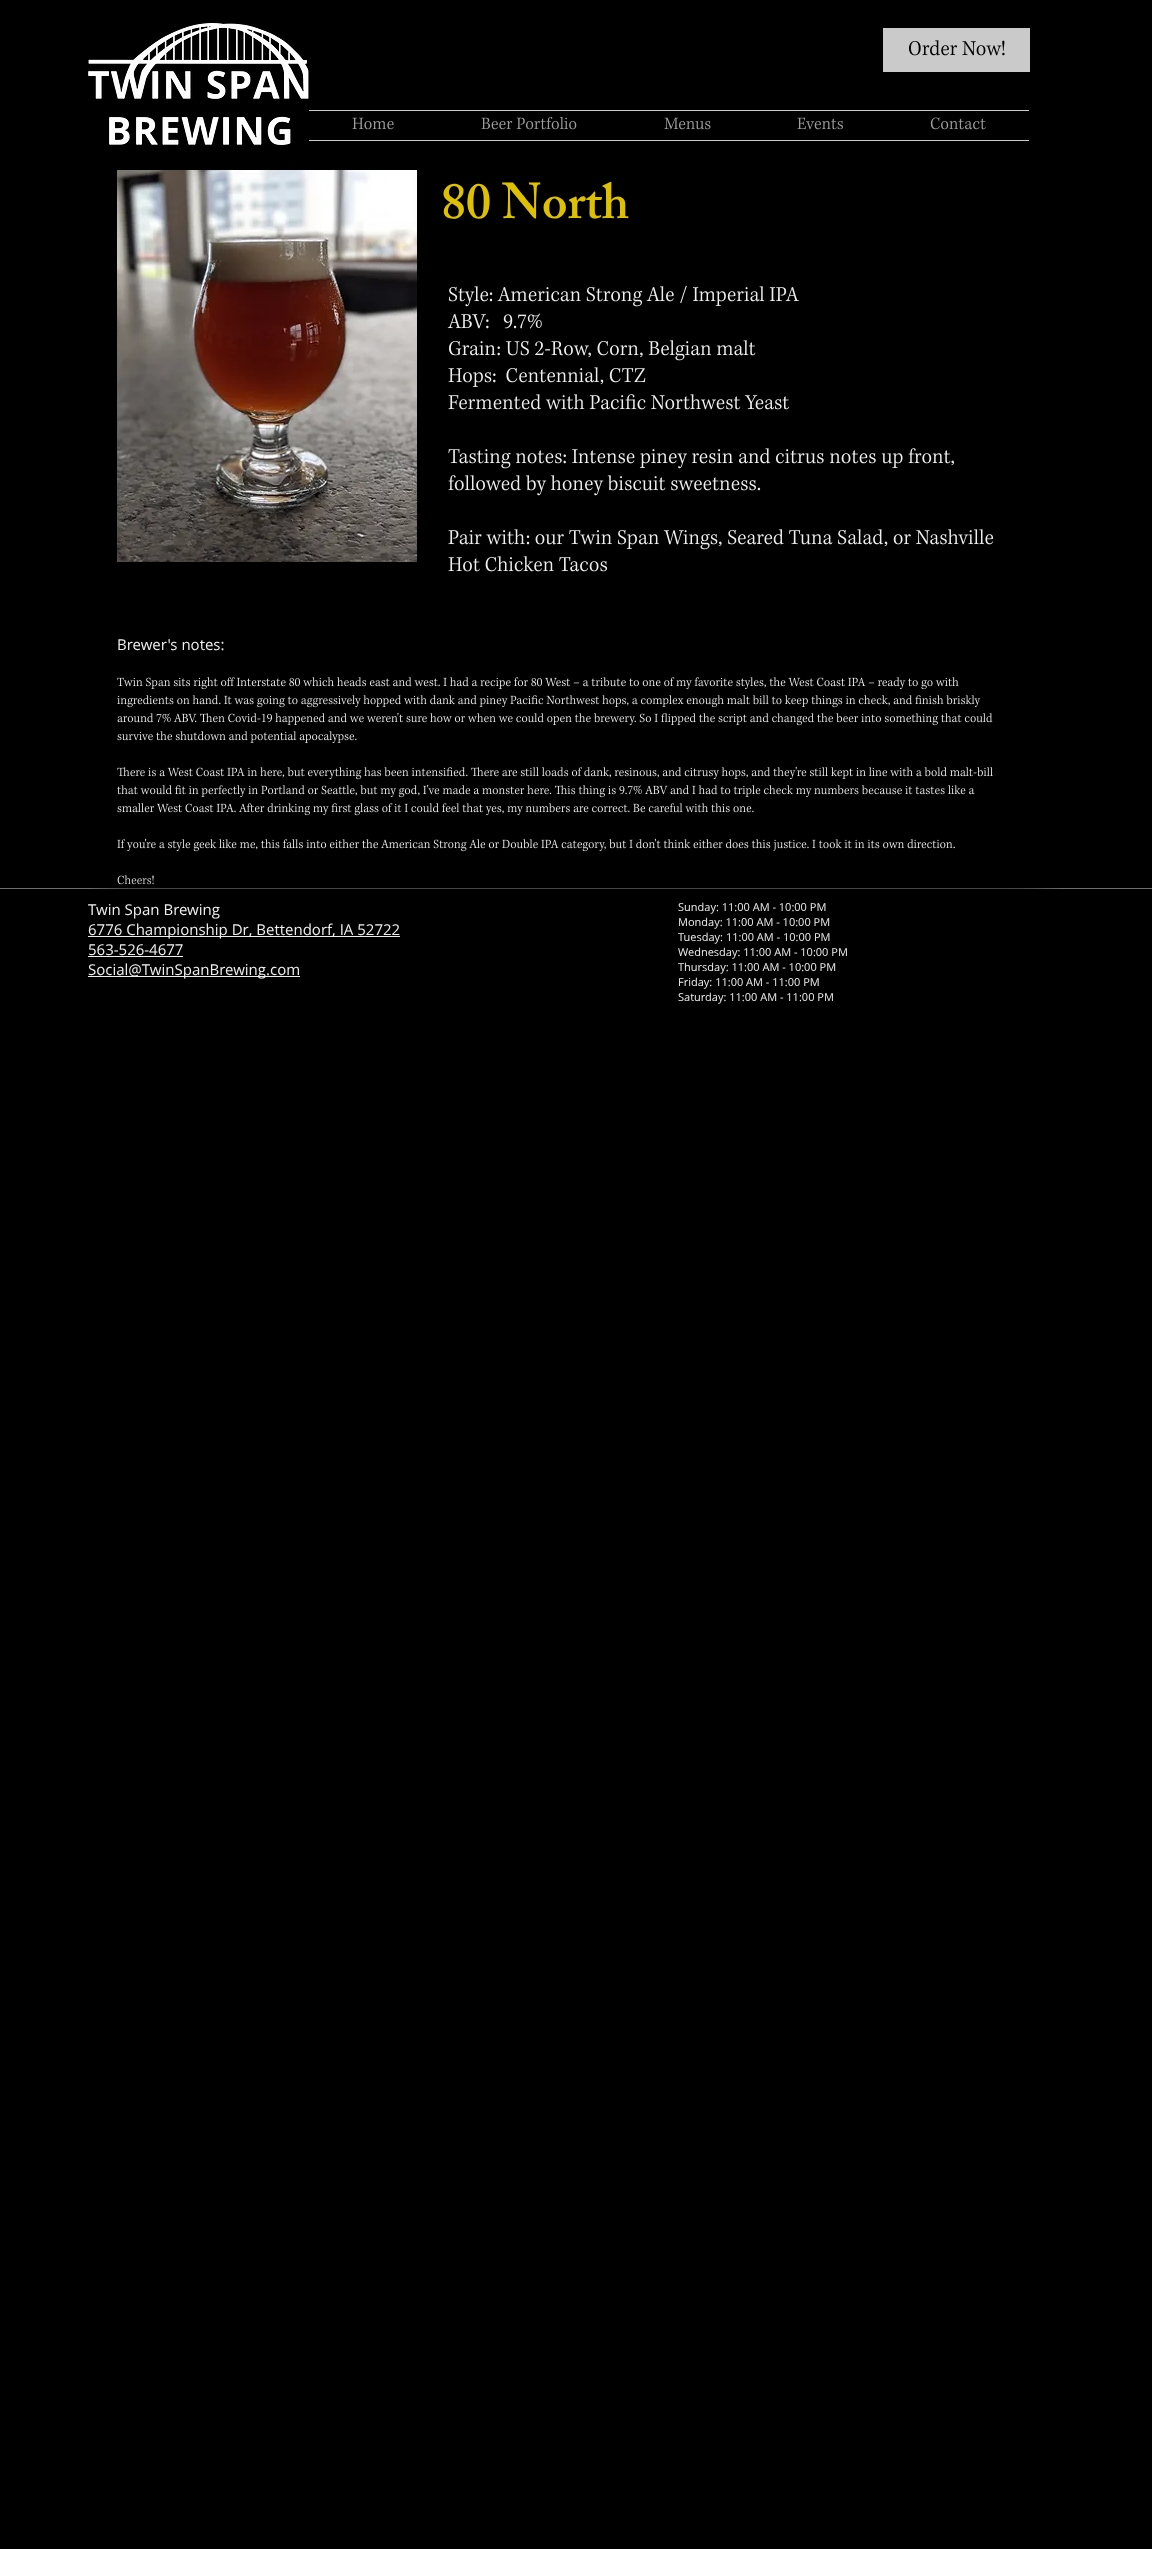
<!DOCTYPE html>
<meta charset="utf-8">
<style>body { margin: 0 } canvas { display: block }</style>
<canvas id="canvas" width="1152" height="2549"></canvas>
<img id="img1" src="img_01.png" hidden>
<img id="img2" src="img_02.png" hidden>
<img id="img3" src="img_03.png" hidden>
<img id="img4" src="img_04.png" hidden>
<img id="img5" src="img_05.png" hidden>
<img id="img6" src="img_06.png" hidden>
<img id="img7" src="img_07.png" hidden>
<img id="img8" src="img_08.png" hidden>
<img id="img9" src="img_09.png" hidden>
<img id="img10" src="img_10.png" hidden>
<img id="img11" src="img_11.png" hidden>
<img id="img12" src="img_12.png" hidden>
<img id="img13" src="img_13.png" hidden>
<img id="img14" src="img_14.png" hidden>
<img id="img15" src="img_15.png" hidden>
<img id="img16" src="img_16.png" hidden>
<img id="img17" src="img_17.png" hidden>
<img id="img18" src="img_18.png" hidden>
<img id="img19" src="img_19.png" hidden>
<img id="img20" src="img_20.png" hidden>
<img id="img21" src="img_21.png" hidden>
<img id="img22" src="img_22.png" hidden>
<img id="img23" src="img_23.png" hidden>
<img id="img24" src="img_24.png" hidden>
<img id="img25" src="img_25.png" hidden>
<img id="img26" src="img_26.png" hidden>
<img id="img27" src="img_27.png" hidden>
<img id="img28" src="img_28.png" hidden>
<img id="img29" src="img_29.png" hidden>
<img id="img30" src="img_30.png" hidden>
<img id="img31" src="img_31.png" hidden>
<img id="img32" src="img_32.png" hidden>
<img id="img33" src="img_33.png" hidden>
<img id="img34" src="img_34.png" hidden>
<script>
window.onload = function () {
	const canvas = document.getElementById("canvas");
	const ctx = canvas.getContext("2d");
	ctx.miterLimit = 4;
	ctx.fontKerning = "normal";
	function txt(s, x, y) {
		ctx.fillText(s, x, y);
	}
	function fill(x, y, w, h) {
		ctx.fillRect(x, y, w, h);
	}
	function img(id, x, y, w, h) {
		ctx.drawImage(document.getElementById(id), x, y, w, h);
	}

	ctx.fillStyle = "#000000";
	fill(0, 0, 1152, 2549);
	img("img1", 88, 23, 221, 122);
	ctx.fillStyle = "#CACACA";
	fill(883, 28, 147, 44);
	img("img2", 909, 40, 96, 16);
	fill(309, 110, 720, 1);
	fill(309, 140, 720, 1);
	img("img3", 352, 117, 42, 13);
	img("img4", 481, 116, 96, 14);
	img("img5", 664, 117, 47, 13);
	img("img6", 797, 117, 46, 13);
	img("img7", 930, 117, 56, 13);
	img("img8", 117, 170, 300, 392);
	img("img9", 448, 286, 45, 21);
	img("img10", 497, 285, 302, 22);
	img("img11", 447, 314, 42, 15);
	img("img12", 503, 313, 39, 16);
	img("img13", 449, 341, 51, 15);
	img("img14", 506, 340, 250, 21);
	img("img15", 448, 368, 48, 19);
	img("img16", 506, 367, 140, 18);
	img("img17", 448, 394, 341, 16);
	img("img18", 448, 449, 118, 20);
	img("img19", 572, 448, 382, 21);
	img("img20", 448, 475, 313, 21);
	img("img21", 448, 529, 82, 16);
	img("img22", 535, 529, 459, 21);
	img("img23", 448, 556, 160, 16);
	img("img24", 117, 677, 842, 13);
	img("img25", 117, 695, 864, 13);
	img("img26", 117, 712, 876, 14);
	img("img27", 117, 731, 240, 13);
	img("img28", 117, 766, 876, 14);
	img("img29", 117, 784, 858, 14);
	img("img30", 117, 803, 637, 13);
	img("img31", 117, 838, 838, 14);
	img("img32", 117, 875, 37, 10);
	ctx.fillStyle = "#6E6C6C";
	fill(0, 888, 1152, 1);
	img("img33", 93, 878, 93, 11);
	ctx.fillStyle = "#484646";
	fill(186, 888, 780, 1);
	img("img34", 966, 888, 93, 1);
	ctx.fillStyle = "#EFEFEF";
	fill(88, 936, 312, 1);
	fill(88, 956, 95, 1);
	fill(88, 976, 212, 1);
	ctx.font = "600 50px 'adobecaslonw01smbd'";
	ctx.fillStyle = "#DDC000";
	txt("80 North", 441, 218);
	ctx.font = "15px Open Sans";
	ctx.fillStyle = "#EFEFEF";
	txt("Brewer's notes:", 117, 650);
	txt("Twin Span Brewing", 88, 915);
	txt("6776 Championship Dr, Bettendorf, IA 52722", 88, 935);
	txt("563-526-4677", 88, 955);
	txt("Social@TwinSpanBrewing.com", 88, 975);
	ctx.font = "11px Open Sans";
	txt("Sunday: 11:00 AM - 10:00 PM", 678, 911);
	txt("Monday: 11:00 AM - 10:00 PM", 678, 926);
	txt("Tuesday: 11:00 AM - 10:00 PM", 678, 941);
	txt("Wednesday: 11:00 AM - 10:00 PM", 678, 956);
	txt("Thursday: 11:00 AM - 10:00 PM", 678, 971);
	txt("Friday: 11:00 AM - 11:00 PM", 678, 986);
	txt("Saturday: 11:00 AM - 11:00 PM", 678, 1001);
};
</script>
